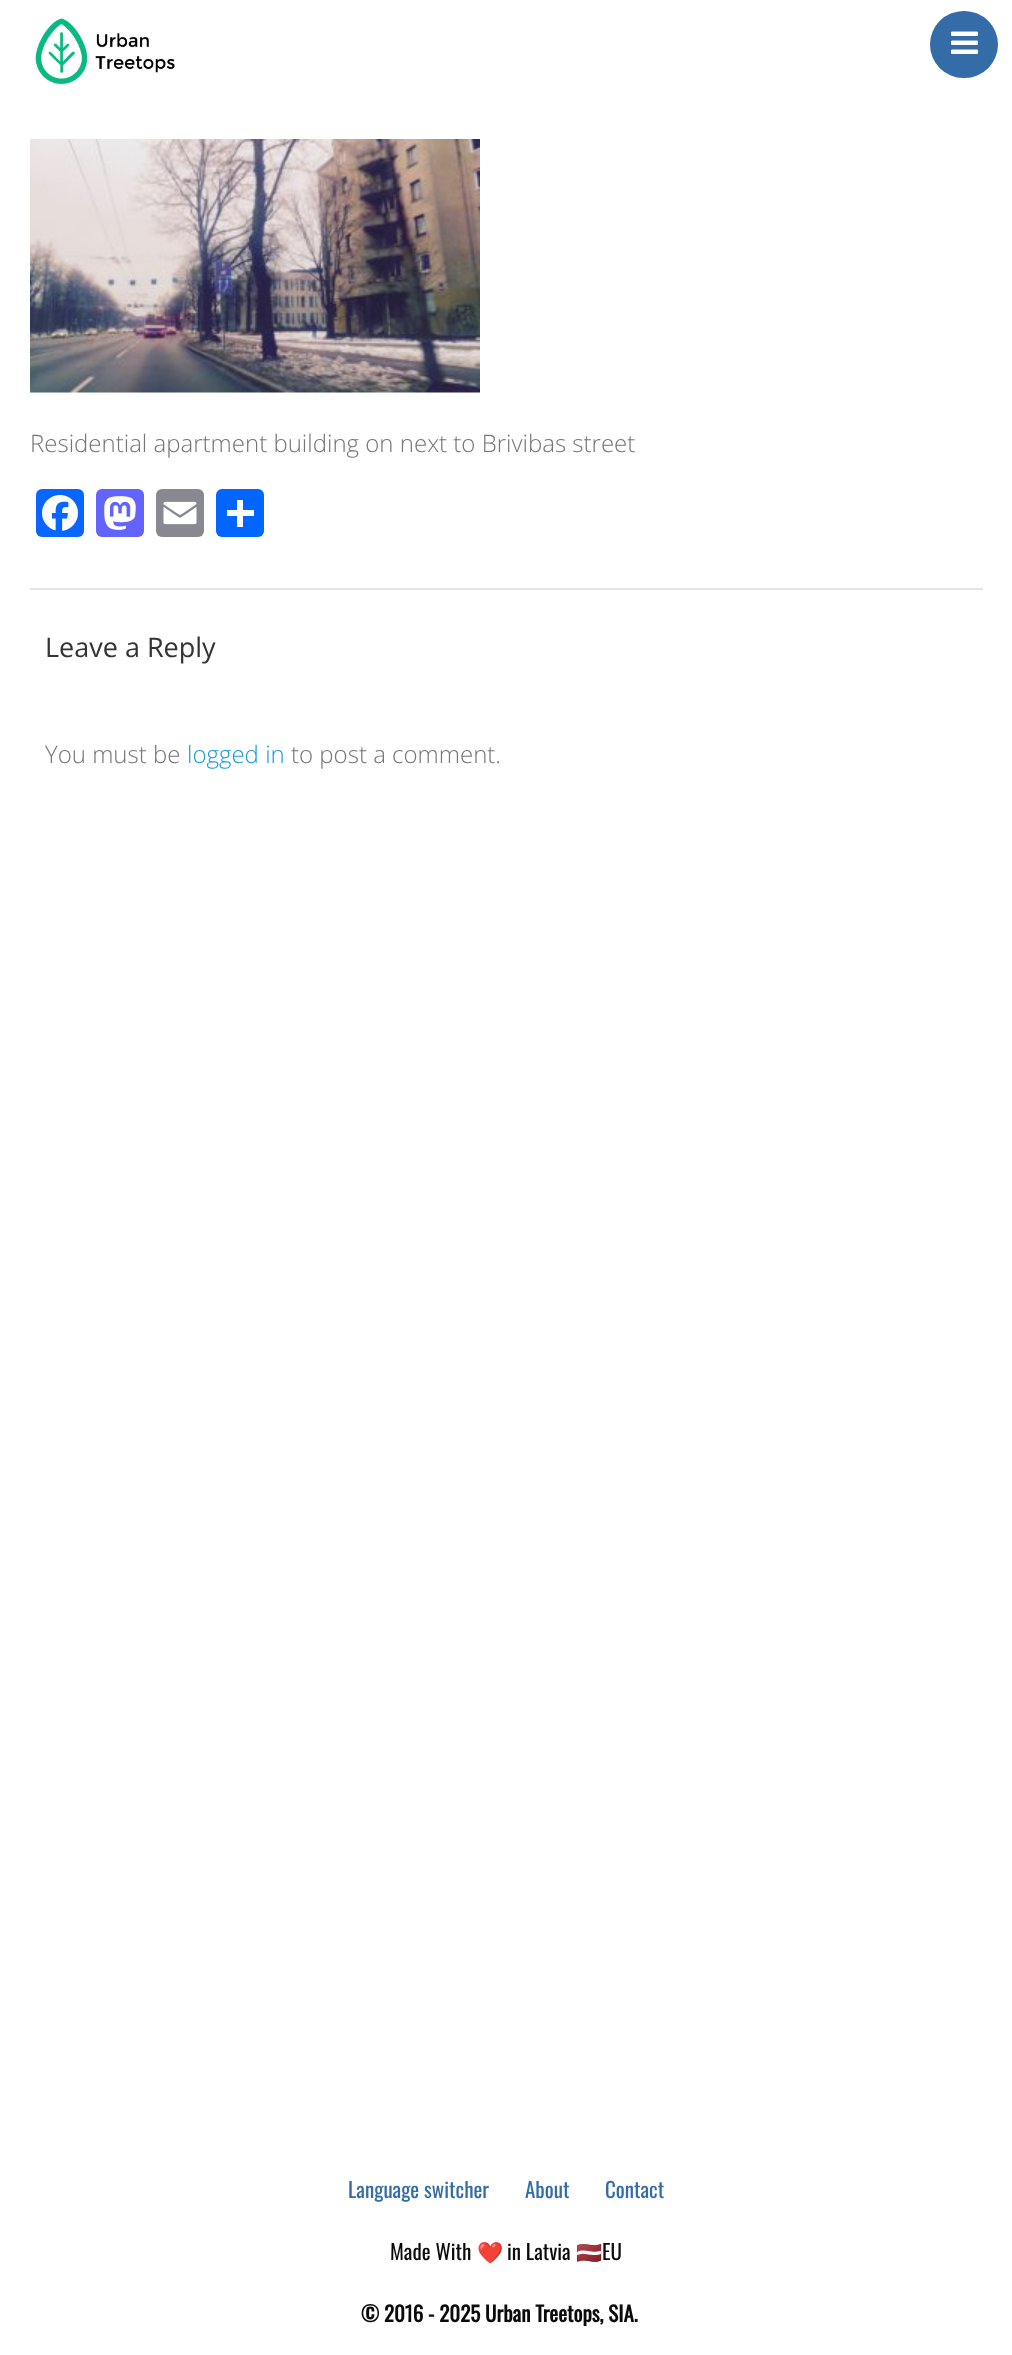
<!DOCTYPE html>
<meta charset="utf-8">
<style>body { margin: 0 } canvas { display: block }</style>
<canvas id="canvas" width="1012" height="2355"></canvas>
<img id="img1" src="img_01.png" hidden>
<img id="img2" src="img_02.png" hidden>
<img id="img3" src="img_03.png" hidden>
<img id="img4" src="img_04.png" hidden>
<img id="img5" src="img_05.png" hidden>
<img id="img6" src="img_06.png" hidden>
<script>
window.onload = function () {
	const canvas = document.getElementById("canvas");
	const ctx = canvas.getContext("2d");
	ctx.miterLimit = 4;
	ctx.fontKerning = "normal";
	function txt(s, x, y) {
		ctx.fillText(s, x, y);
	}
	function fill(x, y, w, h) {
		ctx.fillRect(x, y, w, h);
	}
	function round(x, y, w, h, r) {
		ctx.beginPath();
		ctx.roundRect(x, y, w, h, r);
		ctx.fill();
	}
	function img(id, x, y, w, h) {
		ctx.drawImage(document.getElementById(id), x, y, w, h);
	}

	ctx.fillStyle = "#FFFFFF";
	fill(0, 0, 1012, 2355);
	img("img1", 35, 18, 140, 66);
	ctx.fillStyle = "#336CA6";
	round(930, 11, 68, 67, 33.5);
	img("img2", 951, 31, 27, 23);
	img("img3", 30, 139, 450, 254);
	ctx.fillStyle = "#0866FF";
	round(36, 489, 48, 48, 6);
	img("img4", 42, 495, 36, 36);
	ctx.fillStyle = "#6364FF";
	round(96, 489, 48, 48, 6);
	img("img5", 104, 496, 32, 34);
	ctx.fillStyle = "#888990";
	round(156, 489, 48, 48, 6);
	img("img6", 163, 501, 34, 24);
	ctx.fillStyle = "#0166FF";
	round(216, 489, 48, 48, 6);
	ctx.fillStyle = "#FFFFFF";
	fill(237, 500, 6, 27);
	fill(227, 510, 27, 6);
	ctx.fillStyle = "#E7E4E4";
	fill(30, 588, 953, 2);
	ctx.font = "300 24px Open Sans";
	ctx.fillStyle = "#757575";
	txt("Residential apartment building on next to Brivibas street", 30, 452);
	ctx.font = "27px Open Sans";
	ctx.fillStyle = "#333333";
	txt("Leave a Reply", 45, 657);
	ctx.font = "300 24px Open Sans";
	ctx.fillStyle = "#757575";
	txt("You must be", 45, 763);
	ctx.fillStyle = "#199CD8";
	txt("logged in", 187, 763);
	ctx.fillStyle = "#757575";
	txt("to post a comment.", 291, 763);
	ctx.font = "21px Oswald";
	ctx.fillStyle = "#336CA6";
	txt("Language switcher", 348, 2198);
	txt("About", 525, 2198);
	txt("Contact", 605, 2198);
	ctx.fillStyle = "#0A0A0A";
	txt("Made With", 390, 2260);
	ctx.font = "21px Noto Color Emoji";
	txt("❤️", 477, 2260);
	ctx.font = "21px Oswald";
	txt("in Latvia", 507, 2260);
	ctx.font = "21px Noto Color Emoji";
	txt("🇱🇻", 576, 2260);
	ctx.font = "21px Oswald";
	txt("EU", 602, 2260);
	ctx.font = "bold 21px Oswald";
	txt("© 2016 - 2025 Urban Treetops, SIA.", 361, 2322);
};
</script>
